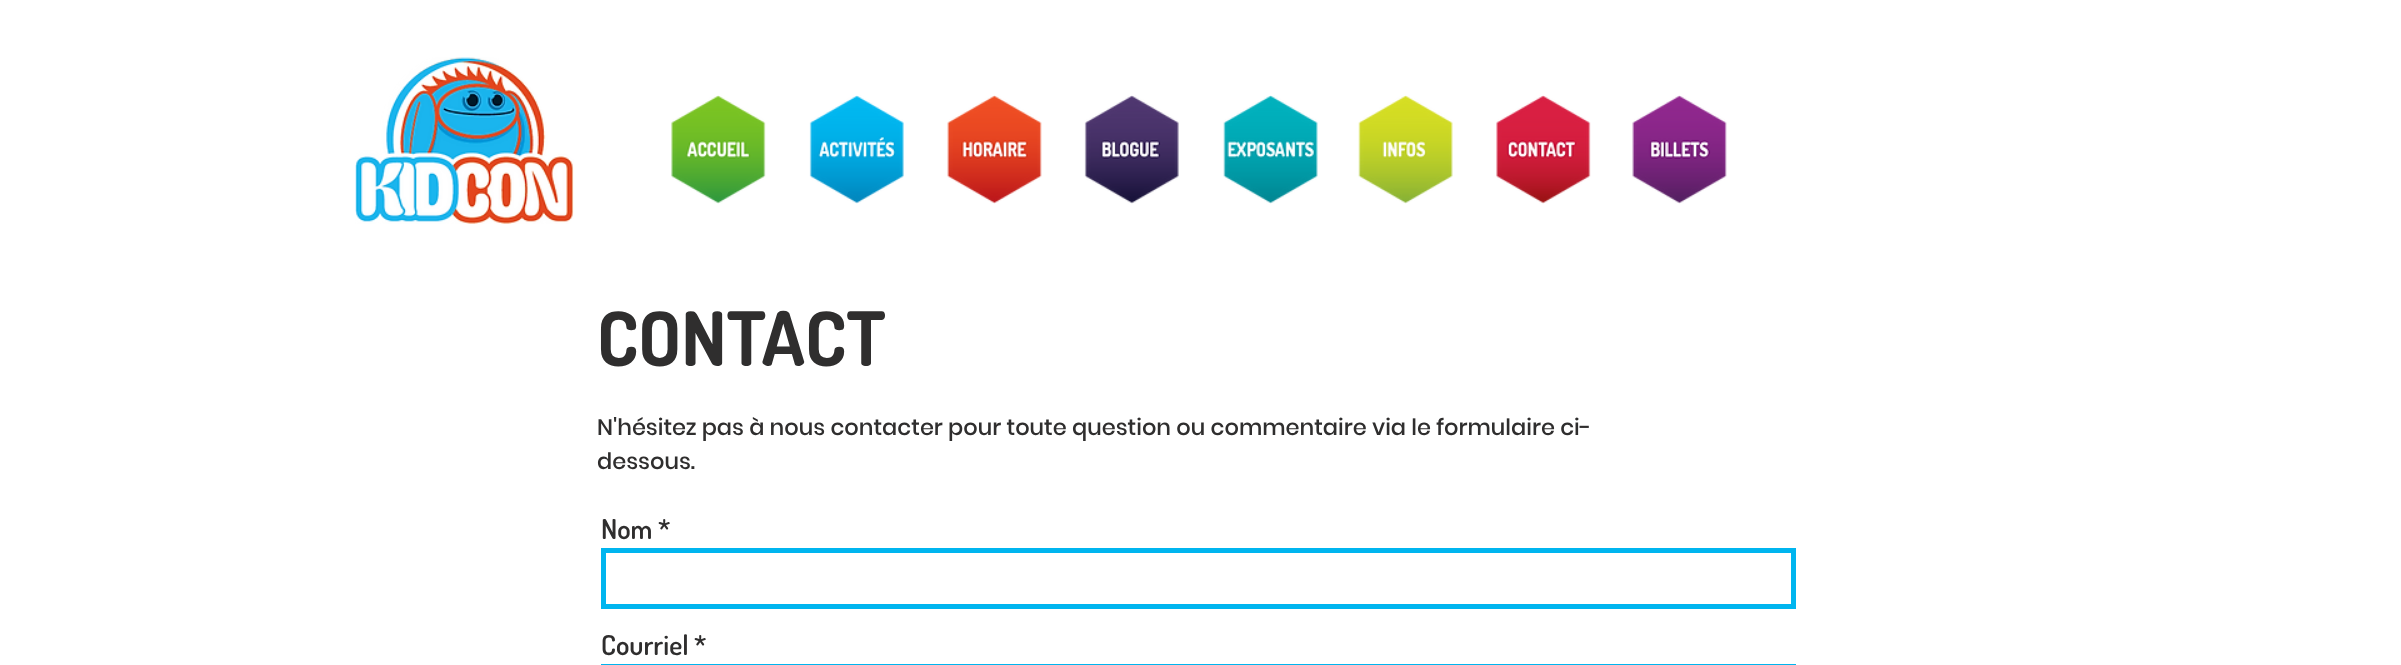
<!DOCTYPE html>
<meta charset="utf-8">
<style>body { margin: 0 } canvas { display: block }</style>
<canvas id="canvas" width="2401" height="665"></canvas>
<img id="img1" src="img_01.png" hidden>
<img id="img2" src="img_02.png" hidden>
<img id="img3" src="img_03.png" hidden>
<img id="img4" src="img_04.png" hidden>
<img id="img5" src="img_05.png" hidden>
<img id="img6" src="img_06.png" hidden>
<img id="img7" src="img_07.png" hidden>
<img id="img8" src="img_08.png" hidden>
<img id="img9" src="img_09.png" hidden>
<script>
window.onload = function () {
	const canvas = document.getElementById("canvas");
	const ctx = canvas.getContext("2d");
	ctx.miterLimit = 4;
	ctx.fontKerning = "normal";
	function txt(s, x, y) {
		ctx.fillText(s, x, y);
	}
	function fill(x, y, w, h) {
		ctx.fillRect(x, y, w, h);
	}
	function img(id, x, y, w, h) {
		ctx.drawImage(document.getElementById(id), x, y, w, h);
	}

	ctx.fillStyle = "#FFFFFF";
	fill(0, 0, 2401, 665);
	img("img1", 355, 57, 219, 167);
	img("img2", 671, 95, 95, 109);
	img("img3", 809, 95, 95, 109);
	img("img4", 947, 95, 95, 109);
	img("img5", 1084, 95, 95, 109);
	img("img6", 1223, 95, 95, 109);
	img("img7", 1358, 95, 95, 109);
	img("img8", 1496, 95, 95, 109);
	img("img9", 1632, 95, 95, 109);
	ctx.strokeStyle = "#00B5EF";
	ctx.lineWidth = 5;
	ctx.strokeRect(603.5, 550.5, 1190, 56);
	ctx.strokeRect(603.5, 666.5, 1190, 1);
	ctx.font = "bold 75px Dosis";
	ctx.fillStyle = "#2F2E2E";
	txt("CONTACT", 597, 366);
	ctx.font = "500 22.5px Poppins";
	txt("N'hésitez pas à nous contacter pour toute question ou commentaire via le formulaire ci-", 597, 435);
	txt("dessous.", 597, 469);
	ctx.font = "600 27.5px Dosis";
	txt("Nom *", 601, 539);
	txt("Courriel *", 601, 655);
};
</script>
